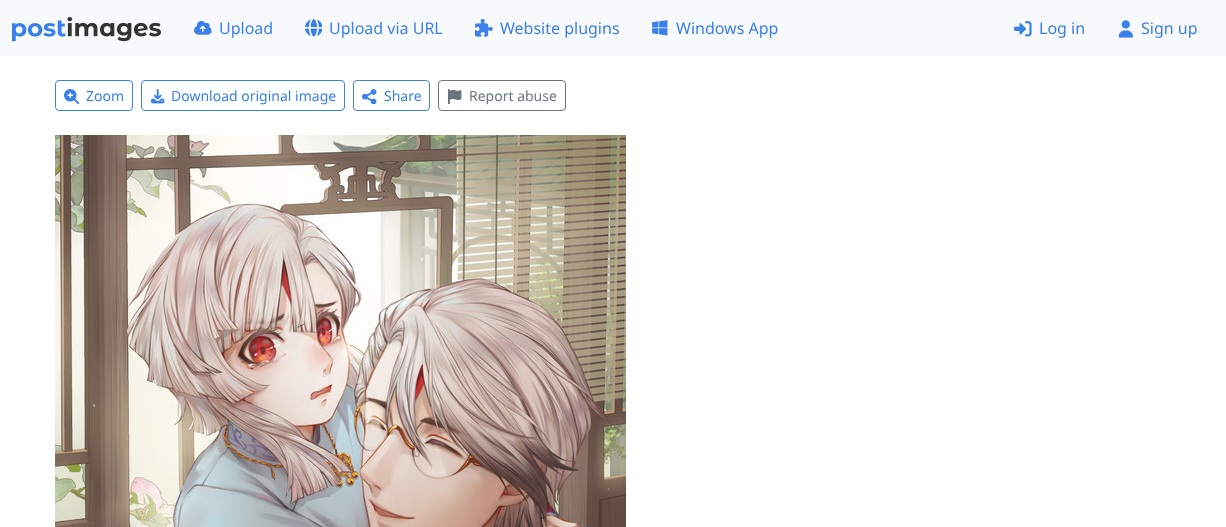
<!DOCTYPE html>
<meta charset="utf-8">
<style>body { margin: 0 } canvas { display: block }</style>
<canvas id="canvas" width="1226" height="527"></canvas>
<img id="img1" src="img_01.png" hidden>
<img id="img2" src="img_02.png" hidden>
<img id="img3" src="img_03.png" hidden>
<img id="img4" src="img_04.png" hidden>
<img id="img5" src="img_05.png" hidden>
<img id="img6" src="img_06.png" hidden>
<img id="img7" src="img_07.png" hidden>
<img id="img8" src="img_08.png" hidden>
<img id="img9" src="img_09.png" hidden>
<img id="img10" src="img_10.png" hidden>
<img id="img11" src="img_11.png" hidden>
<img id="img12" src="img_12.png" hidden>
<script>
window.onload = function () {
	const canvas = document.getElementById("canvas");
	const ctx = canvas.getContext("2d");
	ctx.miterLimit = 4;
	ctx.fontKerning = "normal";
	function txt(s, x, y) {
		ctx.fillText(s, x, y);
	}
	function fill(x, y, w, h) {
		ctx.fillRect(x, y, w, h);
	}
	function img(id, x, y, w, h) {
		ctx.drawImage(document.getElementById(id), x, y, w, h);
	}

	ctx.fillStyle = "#FFFFFF";
	fill(0, 0, 1226, 527);
	ctx.fillStyle = "#F8F9FA";
	fill(0, 0, 1226, 56);
	img("img1", 12, 17, 149, 25);
	img("img2", 194, 21, 18, 14);
	img("img3", 305, 19, 17, 18);
	img("img4", 475, 19, 18, 18);
	img("img5", 652, 20, 16, 16);
	img("img6", 1014, 21, 18, 16);
	img("img7", 1118, 20, 15, 18);
	ctx.beginPath();
	ctx.roundRect(55.5, 80.5, 77, 30, 3.5);
	ctx.strokeStyle = "#3A80EA";
	ctx.stroke();
	img("img8", 64, 89, 15, 15);
	ctx.beginPath();
	ctx.roundRect(141.5, 80.5, 203, 30, 3.5);
	ctx.stroke();
	img("img9", 150, 89, 15, 15);
	ctx.beginPath();
	ctx.roundRect(353.5, 80.5, 76, 30, 3.5);
	ctx.stroke();
	img("img10", 362, 89, 15, 15);
	ctx.beginPath();
	ctx.roundRect(438.5, 80.5, 127, 30, 3.5);
	ctx.strokeStyle = "#6C757D";
	ctx.stroke();
	img("img11", 447, 89, 15, 15);
	img("img12", 55, 135, 571, 392);
	ctx.font = "16px Noto Sans";
	ctx.fillStyle = "#3A80EA";
	txt("Upload", 219, 34);
	txt("Upload via URL", 329, 34);
	txt("Website plugins", 500, 34);
	txt("Windows App", 676, 34);
	txt("Log in", 1039, 34);
	txt("Sign up", 1141, 34);
	ctx.font = "14px Noto Sans";
	txt("Zoom", 86, 101);
	txt("Download original image", 171, 101);
	txt("Share", 384, 101);
	ctx.fillStyle = "#6C757D";
	txt("Report abuse", 469, 101);
};
</script>
